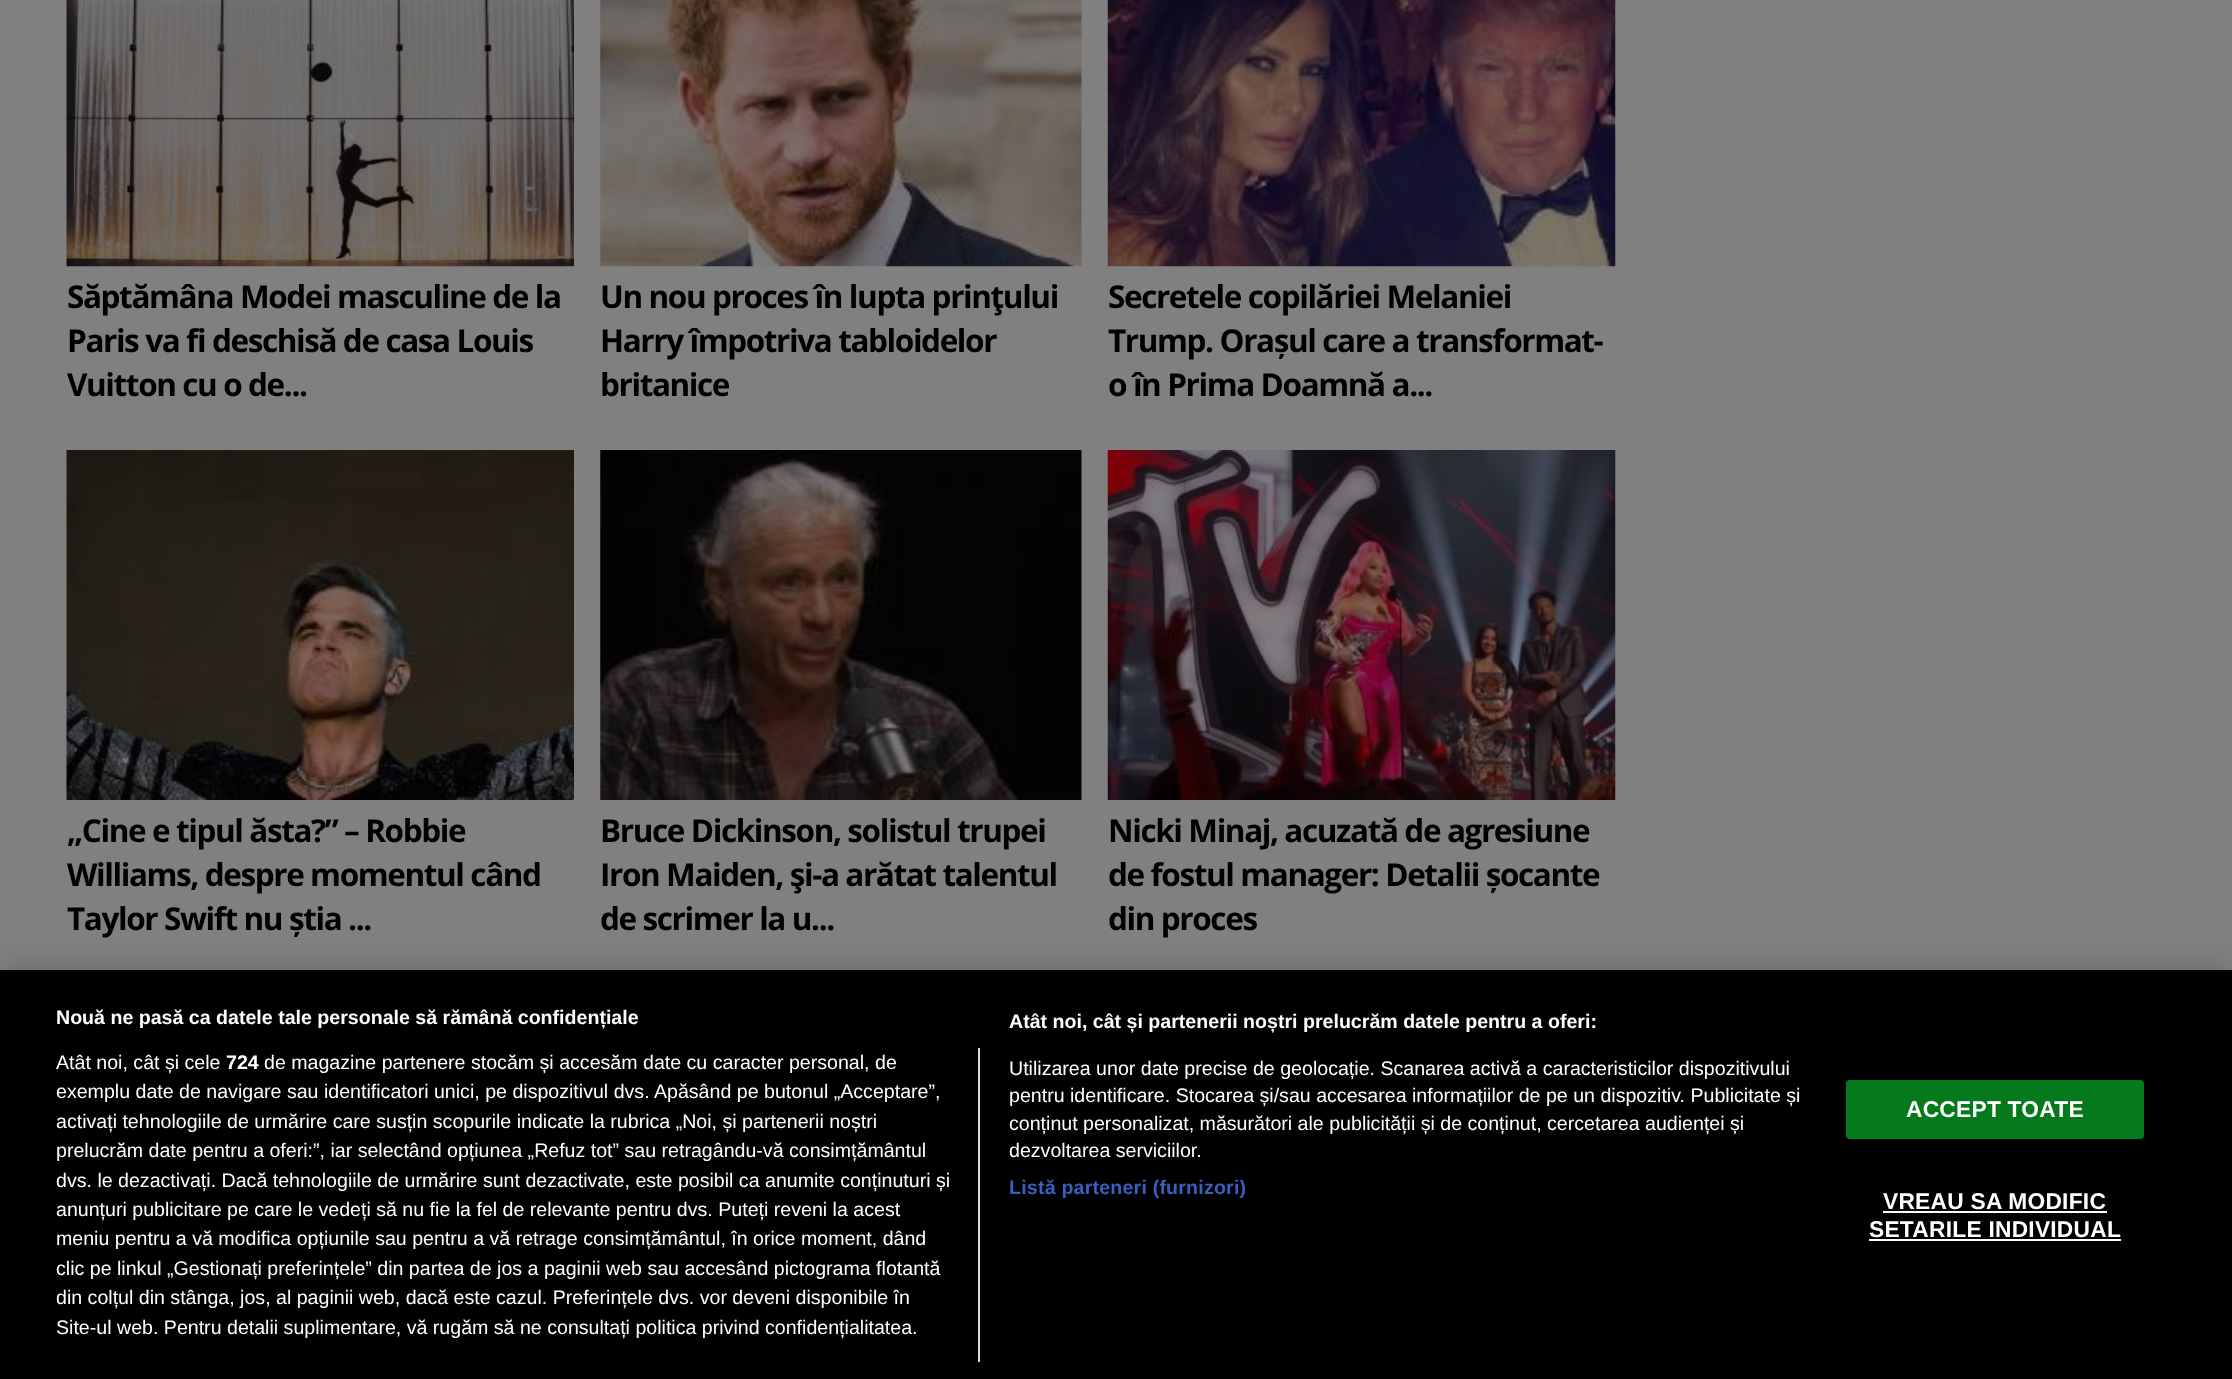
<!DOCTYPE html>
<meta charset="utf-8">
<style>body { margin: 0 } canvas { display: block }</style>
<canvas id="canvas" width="2232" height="1379"></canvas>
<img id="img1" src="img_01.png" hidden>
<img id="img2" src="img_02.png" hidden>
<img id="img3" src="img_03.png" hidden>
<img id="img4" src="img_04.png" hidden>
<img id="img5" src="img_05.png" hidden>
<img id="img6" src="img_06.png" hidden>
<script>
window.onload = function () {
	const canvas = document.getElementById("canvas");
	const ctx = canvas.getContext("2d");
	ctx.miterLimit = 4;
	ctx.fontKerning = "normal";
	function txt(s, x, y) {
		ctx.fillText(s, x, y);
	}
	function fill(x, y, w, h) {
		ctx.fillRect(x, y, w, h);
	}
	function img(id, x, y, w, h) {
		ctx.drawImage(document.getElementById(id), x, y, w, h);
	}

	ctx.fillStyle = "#808080";
	fill(0, 0, 2232, 1379);
	img("img1", 66, 0, 508, 267);
	img("img2", 600, 0, 482, 267);
	img("img3", 1107, 0, 509, 267);
	img("img4", 66, 450, 508, 350);
	img("img5", 600, 450, 482, 350);
	img("img6", 1107, 450, 509, 350);
	ctx.fillStyle = "rgba(0, 0, 0, 0.2)";
	ctx.filter = "blur(16px)";
	ctx.beginPath();
	ctx.rect(0, 970, 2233, 409);
	ctx.fill();
	ctx.filter = "none";
	ctx.fillStyle = "#000000";
	fill(0, 970, 2232, 409);
	ctx.fillStyle = "#D8D8D8";
	fill(978, 1048, 2, 314);
	ctx.fillStyle = "#057A1D";
	ctx.beginPath();
	ctx.roundRect(1847, 1081, 296, 57, 3);
	ctx.fill();
	ctx.strokeStyle = "#057A1D";
	ctx.lineWidth = 2;
	ctx.stroke();
	ctx.fillStyle = "#FFFFFF";
	fill(1883, 1211, 224, 2);
	fill(1869, 1239, 252, 2);
	ctx.letterSpacing = "-1.4px";
	ctx.font = "bold 31.5px Open Sans";
	ctx.fillStyle = "#000000";
	txt("Săptămâna Modei masculine de la", 67, 308);
	txt("Paris va fi deschisă de casa Louis", 67, 352);
	txt("Vuitton cu o de...", 67, 396);
	txt("Un nou proces în lupta prinţului", 600, 308);
	txt("Harry împotriva tabloidelor", 600, 352);
	txt("britanice", 600, 396);
	txt("Secretele copilăriei Melaniei", 1108, 308);
	txt("Trump. Orașul care a transformat-", 1108, 352);
	txt("o în Prima Doamnă a...", 1108, 396);
	txt("„Cine e tipul ăsta?” – Robbie", 67, 842);
	txt("Williams, despre momentul când", 67, 886);
	txt("Taylor Swift nu știa ...", 67, 930);
	txt("Bruce Dickinson, solistul trupei", 600, 842);
	txt("Iron Maiden, şi-a arătat talentul", 600, 886);
	txt("de scrimer la u...", 600, 930);
	txt("Nicki Minaj, acuzată de agresiune", 1108, 842);
	txt("de fostul manager: Detalii șocante", 1108, 886);
	txt("din proces", 1108, 930);
	ctx.letterSpacing = "0px";
	ctx.font = "bold 19.6px Liberation Sans";
	ctx.fillStyle = "#FFFFFF";
	txt("Nouă ne pasă ca datele tale personale să rămână confidențiale", 56, 1024);
	txt("Atât noi, cât și partenerii noștri prelucrăm datele pentru a oferi:", 1009, 1028);
	ctx.font = "19.6px Liberation Sans";
	txt("Utilizarea unor date precise de geolocație. Scanarea activă a caracteristicilor dispozitivului", 1009, 1075);
	txt("pentru identificare. Stocarea și/sau accesarea informațiilor de pe un dispozitiv. Publicitate și", 1009, 1102);
	txt("conținut personalizat, măsurători ale publicității și de conținut, cercetarea audienței și", 1009, 1130);
	txt("dezvoltarea serviciilor.", 1009, 1157);
	ctx.letterSpacing = "0.2px";
	ctx.font = "bold 19.6px Liberation Sans";
	ctx.fillStyle = "#3860BE";
	txt("Listă parteneri (furnizori)", 1009, 1194);
	ctx.letterSpacing = "0px";
	ctx.font = "19.6px Liberation Sans";
	ctx.fillStyle = "#FFFFFF";
	txt("Atât noi, cât și cele", 56, 1069);
	ctx.font = "bold 19.6px Liberation Sans";
	txt("724", 226, 1069);
	ctx.font = "19.6px Liberation Sans";
	txt("de magazine partenere stocăm și accesăm date cu caracter personal, de", 264, 1069);
	txt("exemplu date de navigare sau identificatori unici, pe dispozitivul dvs. Apăsând pe butonul „Acceptare”,", 56, 1098);
	txt("activați tehnologiile de urmărire care susțin scopurile indicate la rubrica „Noi, și partenerii noștri", 56, 1128);
	txt("prelucrăm date pentru a oferi:”, iar selectând opțiunea „Refuz tot” sau retragându-vă consimțământul", 56, 1157);
	txt("dvs. le dezactivați. Dacă tehnologiile de urmărire sunt dezactivate, este posibil ca anumite conținuturi și", 56, 1187);
	txt("anunțuri publicitare pe care le vedeți să nu fie la fel de relevante pentru dvs. Puteți reveni la acest", 56, 1216);
	txt("meniu pentru a vă modifica opțiunile sau pentru a vă retrage consimțământul, în orice moment, dând", 56, 1245);
	txt("clic pe linkul „Gestionați preferințele” din partea de jos a paginii web sau accesând pictograma flotantă", 56, 1275);
	txt("din colțul din stânga, jos, al paginii web, dacă este cazul. Preferințele dvs. vor deveni disponibile în", 56, 1304);
	txt("Site-ul web. Pentru detalii suplimentare, vă rugăm să ne consultați politica privind confidențialitatea.", 56, 1334);
	ctx.letterSpacing = "0.25px";
	ctx.font = "bold 22.75px Liberation Sans";
	txt("ACCEPT TOATE", 1906, 1117);
	txt("VREAU SA MODIFIC", 1883, 1209);
	txt("SETARILE INDIVIDUAL", 1869, 1237);
};
</script>
